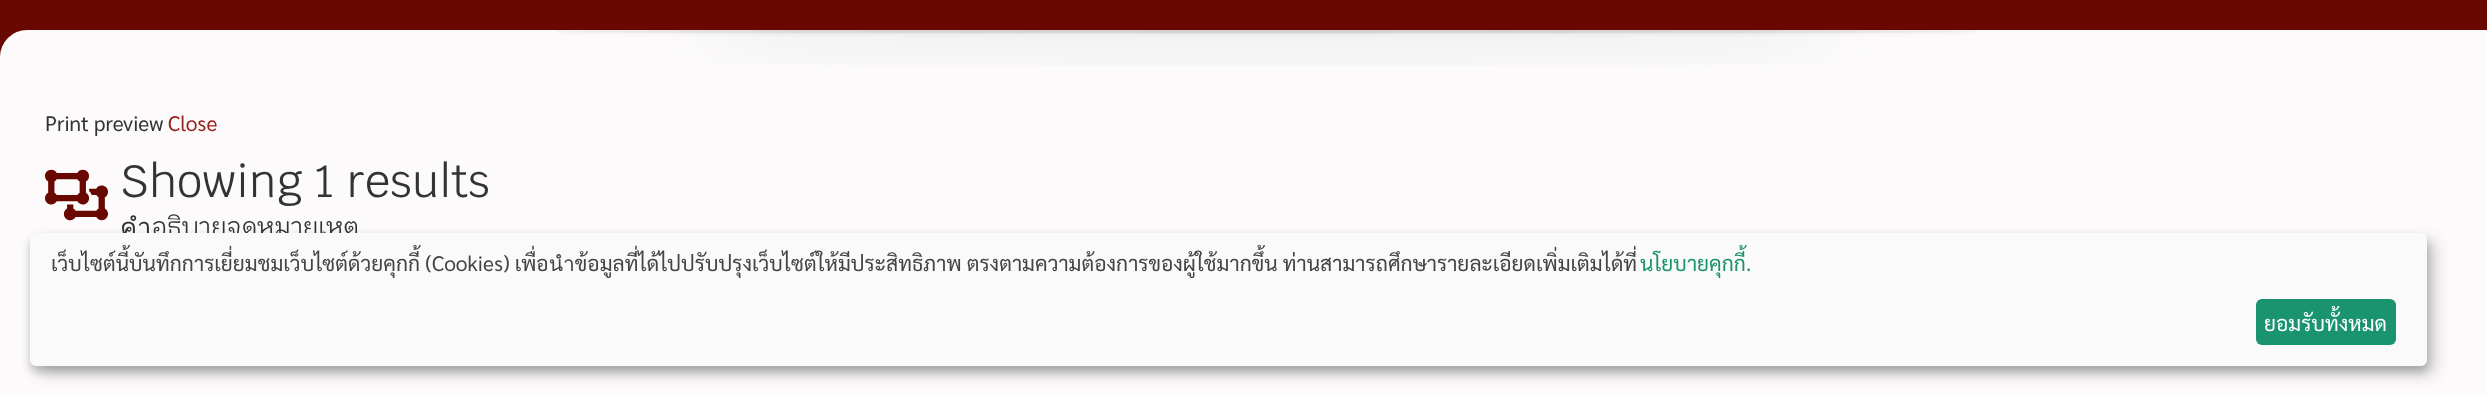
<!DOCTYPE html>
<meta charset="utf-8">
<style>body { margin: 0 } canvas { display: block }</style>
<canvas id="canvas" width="2487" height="395"></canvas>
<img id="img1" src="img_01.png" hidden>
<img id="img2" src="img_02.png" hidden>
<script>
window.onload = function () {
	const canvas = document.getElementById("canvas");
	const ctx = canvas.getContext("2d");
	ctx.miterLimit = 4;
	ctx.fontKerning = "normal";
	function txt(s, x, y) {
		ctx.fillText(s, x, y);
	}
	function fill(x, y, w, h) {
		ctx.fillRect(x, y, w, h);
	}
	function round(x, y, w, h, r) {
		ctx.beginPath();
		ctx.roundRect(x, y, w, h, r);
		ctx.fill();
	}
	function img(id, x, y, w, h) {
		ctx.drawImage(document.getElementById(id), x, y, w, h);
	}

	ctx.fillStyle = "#690800";
	fill(0, 0, 2487, 395);
	ctx.fillStyle = "#FCFAFB";
	round(0, 30, 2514, 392, 27);
	img("img1", 556, 30, 1420, 35);
	img("img2", 45, 169, 63, 52);
	ctx.fillStyle = "rgba(0, 0, 0, 0.19)";
	ctx.filter = "blur(7.5px)";
	ctx.beginPath();
	ctx.roundRect(38, 240, 2397, 134, 6);
	ctx.fill();
	ctx.filter = "none";
	ctx.fillStyle = "rgba(0, 0, 0, 0.2)";
	ctx.filter = "blur(4.5px)";
	ctx.beginPath();
	ctx.roundRect(30, 239, 2397, 133, 6);
	ctx.fill();
	ctx.filter = "none";
	ctx.font = "21px Sarabun";
	ctx.fillStyle = "#333333";
	txt("Print preview", 45, 131);
	ctx.fillStyle = "#96221C";
	txt("Close", 168, 131);
	ctx.font = "45px Krub";
	ctx.fillStyle = "#333333";
	txt("Showing 1 results", 120, 197);
	ctx.font = "25.5px Krub";
	txt("คำอธิบายจดหมายเหตุ", 120, 236);
	ctx.fillStyle = "#FAFAFA";
	round(30, 233, 2397, 133, 6);
	ctx.font = "21px Sarabun";
	ctx.fillStyle = "#444444";
	txt("เว็บไซต์นี้บันทึกการเยี่ยมชมเว็บไซต์ด้วยคุกกี้ (Cookies) เพื่อนำข้อมูลที่ได้ไปปรับปรุงเว็บไซต์ให้มีประสิทธิภาพ ตรงตามความต้องการของผู้ใช้มากขึ้น ท่านสามารถศึกษารายละเอียดเพิ่มเติมได้ที่", 51, 271);
	ctx.fillStyle = "#1A936F";
	txt("นโยบายคุกกี้.", 1640, 271);
	round(2256, 299, 140, 46, 6);
	ctx.fillStyle = "#FFFFFF";
	txt("ยอมรับทั้งหมด", 2264, 331);
};
</script>
